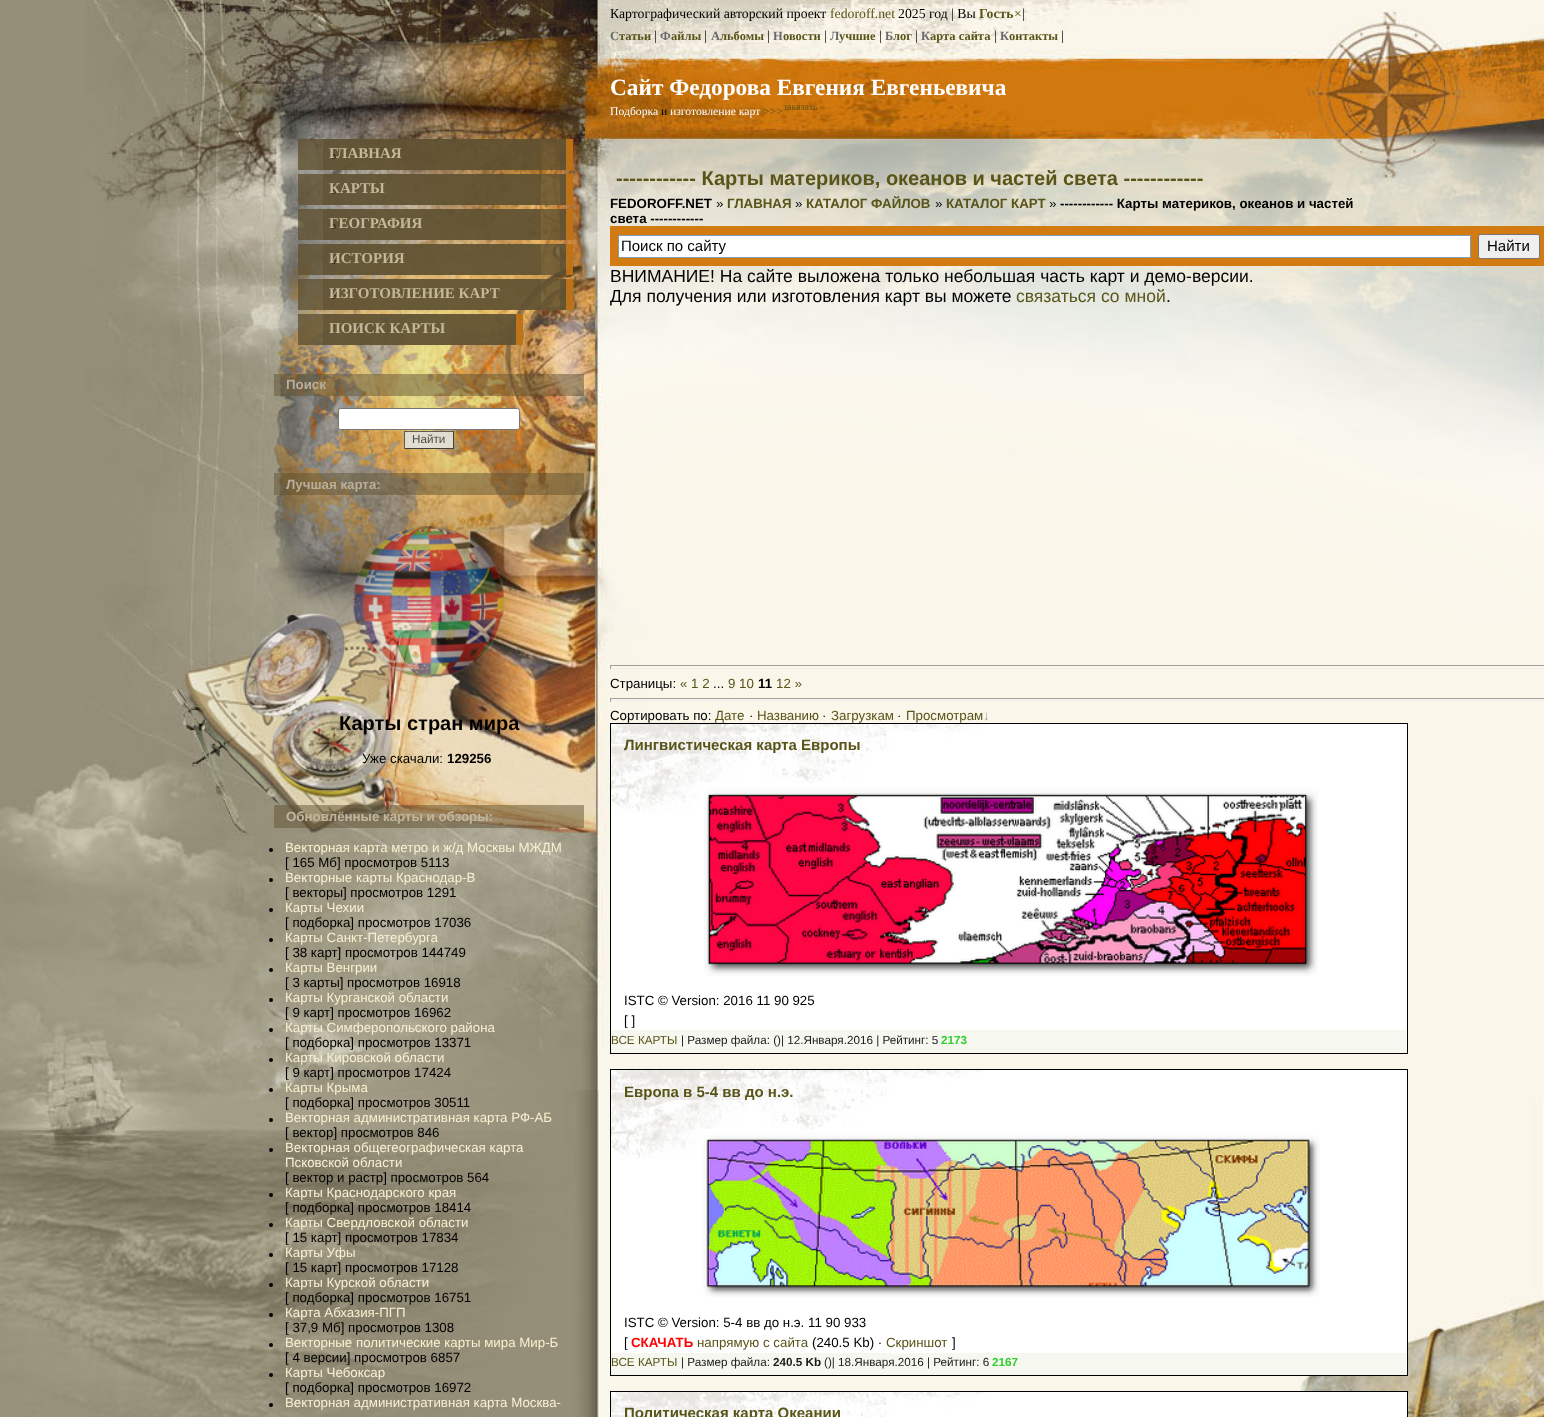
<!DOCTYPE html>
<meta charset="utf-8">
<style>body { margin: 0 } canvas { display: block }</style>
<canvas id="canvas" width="1544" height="1417"></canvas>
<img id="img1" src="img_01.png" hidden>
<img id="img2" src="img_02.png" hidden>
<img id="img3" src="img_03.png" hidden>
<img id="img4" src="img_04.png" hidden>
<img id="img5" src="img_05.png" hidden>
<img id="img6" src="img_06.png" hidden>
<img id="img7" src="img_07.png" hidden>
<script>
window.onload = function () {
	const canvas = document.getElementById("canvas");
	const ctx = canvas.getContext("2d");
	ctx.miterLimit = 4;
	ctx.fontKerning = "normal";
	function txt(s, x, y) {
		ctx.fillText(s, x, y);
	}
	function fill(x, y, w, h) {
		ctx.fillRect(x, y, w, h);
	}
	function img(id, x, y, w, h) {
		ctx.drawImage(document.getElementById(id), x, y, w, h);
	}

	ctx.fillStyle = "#FFFFFF";
	fill(0, 0, 1544, 1417);
	img("img1", 0, 0, 1544, 1417);
	ctx.fillStyle = "rgba(96, 82, 50, 0.8)";
	fill(298, 139, 275, 31);
	ctx.fillStyle = "rgba(210, 121, 17, 0.8)";
	fill(566, 139, 7, 31);
	ctx.beginPath();
	ctx.arc(333.5, 156.5, 2, 0, Math.PI * 2);
	ctx.strokeStyle = "rgba(0, 0, 0, 0.8)";
	ctx.stroke();
	ctx.fillStyle = "rgba(96, 82, 50, 0.64)";
	fill(560, 139, 6, 31);
	ctx.beginPath();
	ctx.arc(333.5, 156.5, 2, 0, Math.PI * 2);
	ctx.stroke();
	ctx.beginPath();
	ctx.arc(333.5, 156.5, 2, 0, Math.PI * 2);
	ctx.stroke();
	fill(323, 139, 218, 31);
	ctx.fillStyle = "rgba(96, 82, 50, 0.8)";
	fill(298, 174, 275, 31);
	ctx.fillStyle = "rgba(210, 121, 17, 0.8)";
	fill(566, 174, 7, 31);
	ctx.beginPath();
	ctx.arc(333.5, 191.5, 2, 0, Math.PI * 2);
	ctx.strokeStyle = "#16130E";
	ctx.stroke();
	ctx.fillStyle = "rgba(96, 82, 50, 0.64)";
	fill(560, 174, 6, 31);
	ctx.beginPath();
	ctx.arc(333.5, 191.5, 2, 0, Math.PI * 2);
	ctx.strokeStyle = "rgba(0, 0, 0, 0.8)";
	ctx.stroke();
	ctx.beginPath();
	ctx.arc(333.5, 191.5, 2, 0, Math.PI * 2);
	ctx.stroke();
	ctx.beginPath();
	ctx.arc(333.5, 191.5, 2, 0, Math.PI * 2);
	ctx.stroke();
	fill(323, 174, 218, 31);
	ctx.fillStyle = "rgba(96, 82, 50, 0.8)";
	fill(298, 209, 275, 31);
	ctx.fillStyle = "rgba(210, 121, 17, 0.8)";
	fill(566, 209, 7, 31);
	ctx.beginPath();
	ctx.arc(333.5, 226.5, 2, 0, Math.PI * 2);
	ctx.stroke();
	ctx.fillStyle = "rgba(96, 82, 50, 0.64)";
	fill(560, 209, 6, 31);
	ctx.beginPath();
	ctx.arc(333.5, 226.5, 2, 0, Math.PI * 2);
	ctx.stroke();
	ctx.beginPath();
	ctx.arc(333.5, 226.5, 2, 0, Math.PI * 2);
	ctx.stroke();
	ctx.beginPath();
	ctx.arc(333.5, 226.5, 2, 0, Math.PI * 2);
	ctx.stroke();
	fill(323, 209, 218, 31);
	ctx.fillStyle = "rgba(96, 82, 50, 0.8)";
	fill(298, 244, 275, 31);
	ctx.fillStyle = "rgba(210, 121, 17, 0.8)";
	fill(566, 244, 7, 31);
	ctx.beginPath();
	ctx.arc(333.5, 261.5, 2, 0, Math.PI * 2);
	ctx.stroke();
	ctx.fillStyle = "rgba(96, 82, 50, 0.64)";
	fill(560, 244, 6, 31);
	ctx.beginPath();
	ctx.arc(333.5, 261.5, 2, 0, Math.PI * 2);
	ctx.stroke();
	ctx.beginPath();
	ctx.arc(333.5, 261.5, 2, 0, Math.PI * 2);
	ctx.stroke();
	ctx.beginPath();
	ctx.arc(333.5, 261.5, 2, 0, Math.PI * 2);
	ctx.stroke();
	fill(323, 244, 218, 31);
	ctx.fillStyle = "rgba(96, 82, 50, 0.8)";
	fill(298, 279, 275, 31);
	ctx.fillStyle = "rgba(210, 121, 17, 0.8)";
	fill(566, 279, 7, 31);
	ctx.beginPath();
	ctx.arc(333.5, 296.5, 2, 0, Math.PI * 2);
	ctx.stroke();
	ctx.fillStyle = "rgba(96, 82, 50, 0.64)";
	fill(560, 279, 6, 31);
	ctx.beginPath();
	ctx.arc(333.5, 296.5, 2, 0, Math.PI * 2);
	ctx.stroke();
	ctx.beginPath();
	ctx.arc(333.5, 296.5, 2, 0, Math.PI * 2);
	ctx.stroke();
	fill(323, 279, 218, 31);
	ctx.fillStyle = "rgba(96, 82, 50, 0.8)";
	fill(298, 314, 225, 31);
	ctx.fillStyle = "rgba(210, 121, 17, 0.8)";
	fill(516, 314, 7, 31);
	ctx.fillStyle = "rgba(96, 82, 50, 0.64)";
	fill(323, 314, 193, 31);
	ctx.fillStyle = "rgba(96, 82, 50, 0.5)";
	fill(274, 374, 310, 22);
	ctx.fillStyle = "#FFFFFF";
	ctx.beginPath();
	ctx.roundRect(338.5, 408.5, 181, 21, 2);
	ctx.fill();
	ctx.strokeStyle = "#767676";
	ctx.stroke();
	ctx.fillStyle = "#E2DDD1";
	fill(405, 432, 48, 16);
	ctx.fillStyle = "#615E58";
	fill(404, 431, 50, 1);
	ctx.fillStyle = "#413F3B";
	fill(453, 431, 1, 18);
	fill(404, 448, 50, 1);
	ctx.fillStyle = "#615E58";
	fill(404, 431, 1, 18);
	ctx.fillStyle = "rgba(96, 82, 50, 0.5)";
	fill(274, 473, 310, 22);
	img("img2", 352, 526, 153, 152);
	fill(274, 805, 310, 23);
	ctx.fillStyle = "#000000";
	ctx.beginPath();
	ctx.arc(271, 850, 2, 0, Math.PI * 2);
	ctx.fill();
	ctx.beginPath();
	ctx.arc(271, 880, 2, 0, Math.PI * 2);
	ctx.fill();
	ctx.beginPath();
	ctx.arc(271, 910, 2, 0, Math.PI * 2);
	ctx.fill();
	ctx.beginPath();
	ctx.arc(271, 940, 2, 0, Math.PI * 2);
	ctx.fill();
	ctx.beginPath();
	ctx.arc(271, 970, 2, 0, Math.PI * 2);
	ctx.fill();
	ctx.beginPath();
	ctx.arc(271, 1000, 2, 0, Math.PI * 2);
	ctx.fill();
	ctx.beginPath();
	ctx.arc(271, 1030, 2, 0, Math.PI * 2);
	ctx.fill();
	ctx.beginPath();
	ctx.arc(271, 1060, 2, 0, Math.PI * 2);
	ctx.fill();
	ctx.beginPath();
	ctx.arc(271, 1090, 2, 0, Math.PI * 2);
	ctx.fill();
	ctx.beginPath();
	ctx.arc(271, 1120, 2, 0, Math.PI * 2);
	ctx.fill();
	ctx.beginPath();
	ctx.arc(271, 1150, 2, 0, Math.PI * 2);
	ctx.fill();
	ctx.beginPath();
	ctx.arc(271, 1195, 2, 0, Math.PI * 2);
	ctx.fill();
	ctx.beginPath();
	ctx.arc(271, 1225, 2, 0, Math.PI * 2);
	ctx.fill();
	ctx.beginPath();
	ctx.arc(271, 1255, 2, 0, Math.PI * 2);
	ctx.fill();
	ctx.beginPath();
	ctx.arc(271, 1285, 2, 0, Math.PI * 2);
	ctx.fill();
	ctx.beginPath();
	ctx.arc(271, 1315, 2, 0, Math.PI * 2);
	ctx.fill();
	ctx.beginPath();
	ctx.arc(271, 1345, 2, 0, Math.PI * 2);
	ctx.fill();
	ctx.beginPath();
	ctx.arc(271, 1375, 2, 0, Math.PI * 2);
	ctx.fill();
	ctx.beginPath();
	ctx.arc(271, 1405, 2, 0, Math.PI * 2);
	ctx.fill();
	ctx.fillStyle = "#D27B12";
	fill(610, 226, 934, 40);
	ctx.fillStyle = "#FFFFFF";
	ctx.beginPath();
	ctx.rect(618.5, 235.5, 852, 22);
	ctx.fill();
	ctx.strokeStyle = "#7F9DB9";
	ctx.stroke();
	ctx.fillStyle = "#EFEFEF";
	ctx.beginPath();
	ctx.roundRect(1478.5, 234.5, 61, 24, 2);
	ctx.fill();
	ctx.strokeStyle = "#767676";
	ctx.stroke();
	ctx.fillStyle = "#9F9F9F";
	fill(610, 665, 934, 1);
	ctx.fillStyle = "#EEEEEE";
	fill(610, 668, 934, 1);
	ctx.fillStyle = "#9F9F9F";
	fill(610, 665, 1, 4);
	fill(610, 698, 934, 1);
	ctx.fillStyle = "#EEEEEE";
	fill(610, 700, 934, 1);
	ctx.fillStyle = "#9F9F9F";
	fill(610, 698, 1, 4);
	ctx.fillStyle = "#FFFFFF";
	fill(611, 724, 796, 329);
	img("img3", 610, 722, 423, 91);
	ctx.strokeStyle = "#000000";
	ctx.strokeRect(610.5, 723.5, 797, 330);
	img("img4", 704, 782, 614, 194);
	ctx.fillStyle = "#F6F7EF";
	fill(611, 1030, 795, 23);
	ctx.fillStyle = "#FFFFFF";
	fill(611, 1070, 796, 305);
	img("img5", 610, 1068, 422, 91);
	ctx.strokeRect(610.5, 1069.5, 797, 306);
	img("img6", 703, 1129, 617, 168);
	ctx.fillStyle = "#F6F7EF";
	fill(611, 1353, 795, 22);
	ctx.fillStyle = "#FFFFFF";
	fill(986, 1392, 421, 25);
	img("img7", 611, 1392, 375, 25);
	ctx.strokeRect(610.5, 1391.5, 797, 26);
	ctx.font = "bold 15px Liberation Serif";
	ctx.fillStyle = "#C3B899";
	txt("ГЛАВНАЯ", 329, 158);
	txt("КАРТЫ", 329, 193);
	txt("ГЕОГРАФИЯ", 329, 228);
	txt("ИСТОРИЯ", 329, 263);
	txt("ИЗГОТОВЛЕНИЕ КАРТ", 329, 298);
	txt("ПОИСК КАРТЫ", 329, 333);
	ctx.font = "bold 13.3px Liberation Sans";
	ctx.fillStyle = "#B8AE9A";
	txt("Поиск", 286, 389);
	ctx.font = "11.7px Liberation Sans";
	ctx.fillStyle = "#4F4D48";
	txt("Найти", 412, 443);
	ctx.font = "bold 13.3px Liberation Sans";
	ctx.fillStyle = "#B8AE9A";
	txt("Лучшая карта:", 286, 489);
	ctx.font = "bold 20px Liberation Sans";
	ctx.fillStyle = "#000000";
	txt("Карты стран мира", 339, 730);
	ctx.font = "13.3px Liberation Sans";
	txt("Уже скачали:", 362, 763);
	ctx.font = "bold 13.3px Liberation Sans";
	txt("129256", 447, 763);
	ctx.fillStyle = "#C1B7A1";
	txt("Обновлённые карты и обзоры:", 286, 821);
	ctx.font = "13.3px Liberation Sans";
	ctx.fillStyle = "#FAF0D1";
	txt("Векторная карта метро и ж/д Москвы МЖДМ", 285, 852);
	ctx.fillStyle = "#000000";
	txt("[ 165 Мб] просмотров 5113", 285, 867);
	ctx.fillStyle = "#FAF0D1";
	txt("Векторные карты Краснодар-В", 285, 882);
	ctx.fillStyle = "#000000";
	txt("[ векторы] просмотров 1291", 285, 897);
	ctx.fillStyle = "#FAF0D1";
	txt("Карты Чехии", 285, 912);
	ctx.fillStyle = "#000000";
	txt("[ подборка] просмотров 17036", 285, 927);
	ctx.fillStyle = "#FAF0D1";
	txt("Карты Санкт-Петербурга", 285, 942);
	ctx.fillStyle = "#000000";
	txt("[ 38 карт] просмотров 144749", 285, 957);
	ctx.fillStyle = "#FAF0D1";
	txt("Карты Венгрии", 285, 972);
	ctx.fillStyle = "#000000";
	txt("[ 3 карты] просмотров 16918", 285, 987);
	ctx.fillStyle = "#FAF0D1";
	txt("Карты Курганской области", 285, 1002);
	ctx.fillStyle = "#000000";
	txt("[ 9 карт] просмотров 16962", 285, 1017);
	ctx.fillStyle = "#FAF0D1";
	txt("Карты Симферопольского района", 285, 1032);
	ctx.fillStyle = "#000000";
	txt("[ подборка] просмотров 13371", 285, 1047);
	ctx.fillStyle = "#FAF0D1";
	txt("Карты Кировской области", 285, 1062);
	ctx.fillStyle = "#000000";
	txt("[ 9 карт] просмотров 17424", 285, 1077);
	ctx.fillStyle = "#FAF0D1";
	txt("Карты Крыма", 285, 1092);
	ctx.fillStyle = "#000000";
	txt("[ подборка] просмотров 30511", 285, 1107);
	ctx.fillStyle = "#FAF0D1";
	txt("Векторная административная карта РФ-АБ", 285, 1122);
	ctx.fillStyle = "#000000";
	txt("[ вектор] просмотров 846", 285, 1137);
	ctx.fillStyle = "#FAF0D1";
	txt("Векторная общегеографическая карта", 285, 1152);
	txt("Псковской области", 285, 1167);
	ctx.fillStyle = "#000000";
	txt("[ вектор и растр] просмотров 564", 285, 1182);
	ctx.fillStyle = "#FAF0D1";
	txt("Карты Краснодарского края", 285, 1197);
	ctx.fillStyle = "#000000";
	txt("[ подборка] просмотров 18414", 285, 1212);
	ctx.fillStyle = "#FAF0D1";
	txt("Карты Свердловской области", 285, 1227);
	ctx.fillStyle = "#000000";
	txt("[ 15 карт] просмотров 17834", 285, 1242);
	ctx.fillStyle = "#FAF0D1";
	txt("Карты Уфы", 285, 1257);
	ctx.fillStyle = "#000000";
	txt("[ 15 карт] просмотров 17128", 285, 1272);
	ctx.fillStyle = "#FAF0D1";
	txt("Карты Курской области", 285, 1287);
	ctx.fillStyle = "#000000";
	txt("[ подборка] просмотров 16751", 285, 1302);
	ctx.fillStyle = "#FAF0D1";
	txt("Карта Абхазия-ПГП", 285, 1317);
	ctx.fillStyle = "#000000";
	txt("[ 37,9 Мб] просмотров 1308", 285, 1332);
	ctx.fillStyle = "#FAF0D1";
	txt("Векторные политические карты мира Мир-Б", 285, 1347);
	ctx.fillStyle = "#000000";
	txt("[ 4 версии] просмотров 6857", 285, 1362);
	ctx.fillStyle = "#FAF0D1";
	txt("Карты Чебоксар", 285, 1377);
	ctx.fillStyle = "#000000";
	txt("[ подборка] просмотров 16972", 285, 1392);
	ctx.fillStyle = "#FAF0D1";
	txt("Векторная административная карта Москва-", 285, 1407);
	ctx.font = "13.75px Liberation Serif";
	ctx.fillStyle = "#000000";
	txt("Картографический авторский проект", 610, 18);
	ctx.fillStyle = "#595418";
	txt("fedoroff.net", 830, 18);
	ctx.fillStyle = "#000000";
	txt("2025 год | Вы", 898, 18);
	ctx.font = "bold 13.75px Liberation Serif";
	ctx.fillStyle = "#595418";
	txt("Гость", 979, 18);
	ctx.font = "13.75px Liberation Serif";
	txt("×", 1014, 18);
	ctx.fillStyle = "#000000";
	txt("|", 1022, 18);
	ctx.font = "bold 12.5px Liberation Serif";
	ctx.fillStyle = "#696969";
	txt("С", 610, 40);
	ctx.fillStyle = "#595418";
	txt("татьи", 619, 40);
	ctx.font = "13.75px Liberation Serif";
	ctx.fillStyle = "#000000";
	txt("|", 654, 40);
	ctx.font = "bold 12.5px Liberation Serif";
	ctx.fillStyle = "#696969";
	txt("Ф", 660, 40);
	ctx.fillStyle = "#595418";
	txt("айлы", 671, 40);
	ctx.font = "13.75px Liberation Serif";
	ctx.fillStyle = "#000000";
	txt("|", 704, 40);
	ctx.font = "bold 12.5px Liberation Serif";
	ctx.fillStyle = "#696969";
	txt("А", 711, 40);
	ctx.fillStyle = "#595418";
	txt("льбомы", 720, 40);
	ctx.font = "13.75px Liberation Serif";
	ctx.fillStyle = "#000000";
	txt("|", 767, 40);
	ctx.font = "bold 12.5px Liberation Serif";
	ctx.fillStyle = "#696969";
	txt("Н", 773, 40);
	ctx.fillStyle = "#595418";
	txt("овости", 783, 40);
	ctx.font = "13.75px Liberation Serif";
	ctx.fillStyle = "#000000";
	txt("|", 824, 40);
	ctx.font = "bold 12.5px Liberation Serif";
	ctx.fillStyle = "#696969";
	txt("Л", 830, 40);
	ctx.fillStyle = "#595418";
	txt("учшие", 839, 40);
	ctx.font = "13.75px Liberation Serif";
	ctx.fillStyle = "#000000";
	txt("|", 879, 40);
	ctx.font = "bold 12.5px Liberation Serif";
	ctx.fillStyle = "#696969";
	txt("Б", 885, 40);
	ctx.fillStyle = "#595418";
	txt("лог", 893, 40);
	ctx.font = "13.75px Liberation Serif";
	ctx.fillStyle = "#000000";
	txt("|", 915, 40);
	ctx.font = "bold 12.5px Liberation Serif";
	ctx.fillStyle = "#696969";
	txt("К", 921, 40);
	ctx.fillStyle = "#595418";
	txt("арта сайта", 930, 40);
	ctx.font = "13.75px Liberation Serif";
	ctx.fillStyle = "#000000";
	txt("|", 994, 40);
	ctx.font = "bold 12.5px Liberation Serif";
	ctx.fillStyle = "#696969";
	txt("К", 1000, 40);
	ctx.fillStyle = "#595418";
	txt("онтакты", 1009, 40);
	ctx.font = "13.75px Liberation Serif";
	ctx.fillStyle = "#000000";
	txt("|", 1061, 40);
	ctx.font = "bold 23.3px Liberation Serif";
	ctx.fillStyle = "#FFFFFF";
	txt("Сайт Федорова Евгения Евгеньевича", 610, 95);
	ctx.font = "11.7px Liberation Serif";
	txt("Подборка", 610, 115);
	ctx.fillStyle = "#000000";
	txt("и", 661, 115);
	ctx.fillStyle = "#FFFFFF";
	txt("изготовление карт", 670, 115);
	ctx.fillStyle = "#595418";
	txt(">>>", 763, 115);
	ctx.font = "10px Liberation Serif";
	txt("заказать", 783, 110);
	ctx.font = "bold 20px Liberation Sans";
	txt("------------ Карты материков, океанов и частей света ------------", 616, 185);
	ctx.font = "bold 13.3px Liberation Sans";
	ctx.fillStyle = "#000000";
	txt("FEDOROFF.NET", 610, 208);
	ctx.font = "13.3px Liberation Sans";
	txt("»", 716, 208);
	ctx.font = "bold 13.3px Liberation Sans";
	ctx.fillStyle = "#595418";
	txt("ГЛАВНАЯ", 727, 208);
	ctx.font = "13.3px Liberation Sans";
	ctx.fillStyle = "#000000";
	txt("»", 795, 208);
	ctx.font = "bold 13.3px Liberation Sans";
	ctx.fillStyle = "#595418";
	txt("КАТАЛОГ ФАЙЛОВ", 806, 208);
	ctx.font = "13.3px Liberation Sans";
	ctx.fillStyle = "#000000";
	txt("»", 935, 208);
	ctx.font = "bold 13.3px Liberation Sans";
	ctx.fillStyle = "#595418";
	txt("КАТАЛОГ КАРТ", 946, 208);
	ctx.font = "13.3px Liberation Sans";
	ctx.fillStyle = "#000000";
	txt("»", 1049, 208);
	ctx.font = "bold 13.3px Liberation Sans";
	txt("------------ Карты материков, океанов и частей", 1060, 208);
	txt("света ------------", 610, 223);
	ctx.font = "15px Liberation Sans";
	txt("Поиск по сайту", 621, 251);
	txt("Найти", 1487, 251);
	ctx.font = "17.5px Liberation Sans";
	txt("ВНИМАНИЕ! На сайте выложена только небольшая часть карт и демо-версии.", 610, 282);
	txt("Для получения или изготовления карт вы можете", 610, 302);
	ctx.fillStyle = "#595418";
	txt("связаться со мной", 1016, 302);
	ctx.fillStyle = "#000000";
	txt(".", 1166, 302);
	ctx.font = "13.3px Liberation Sans";
	txt("Страницы:", 610, 688);
	ctx.fillStyle = "#595418";
	txt("« 1 2", 680, 688);
	ctx.fillStyle = "#000000";
	txt("...", 713, 688);
	ctx.fillStyle = "#595418";
	txt("9 10", 728, 688);
	ctx.font = "bold 13.3px Liberation Sans";
	ctx.fillStyle = "#000000";
	txt("11", 758, 688);
	ctx.font = "13.3px Liberation Sans";
	ctx.fillStyle = "#595418";
	txt("12 »", 776, 688);
	ctx.fillStyle = "#000000";
	txt("Сортировать по:", 610, 720);
	ctx.fillStyle = "#595418";
	txt("Дате", 715, 720);
	ctx.fillStyle = "#000000";
	txt("·", 749, 720);
	ctx.fillStyle = "#595418";
	txt("Названию", 757, 720);
	ctx.fillStyle = "#000000";
	txt("·", 822, 720);
	ctx.fillStyle = "#595418";
	txt("Загрузкам", 831, 720);
	ctx.fillStyle = "#000000";
	txt("·", 897, 720);
	ctx.fillStyle = "#595418";
	txt("Просмотрам", 906, 720);
	ctx.fillStyle = "#9F9E9B";
	txt("↓", 983, 720);
	ctx.font = "bold 15px Liberation Sans";
	ctx.fillStyle = "#595418";
	txt("Лингвистическая карта Европы", 624, 750);
	ctx.font = "13.3px Liberation Sans";
	ctx.fillStyle = "#000000";
	txt("ISTC © Version: 2016 11 90 925", 624, 1005);
	txt("[ ]", 624, 1025);
	ctx.font = "11.7px Liberation Sans";
	ctx.fillStyle = "#595418";
	txt("ВСЕ КАРТЫ", 611, 1044);
	ctx.fillStyle = "#1A1A1A";
	txt("| Размер файла: ()| 12.Января.2016 | Рейтинг: 5", 681, 1044);
	ctx.font = "bold 11.7px Liberation Sans";
	ctx.fillStyle = "#32CD32";
	txt("2173", 941, 1044);
	ctx.font = "bold 15px Liberation Sans";
	ctx.fillStyle = "#595418";
	txt("Европа в 5-4 вв до н.э.", 624, 1097);
	ctx.font = "13.3px Liberation Sans";
	ctx.fillStyle = "#000000";
	txt("ISTC © Version: 5-4 вв до н.э. 11 90 933", 624, 1327);
	txt("[", 624, 1347);
	ctx.font = "bold 13.3px Liberation Sans";
	ctx.fillStyle = "#FF0000";
	txt("СКАЧАТЬ", 631, 1347);
	ctx.font = "13.3px Liberation Sans";
	ctx.fillStyle = "#595418";
	txt("напрямую с сайта", 697, 1347);
	ctx.fillStyle = "#000000";
	txt("(240.5 Kb) ·", 812, 1347);
	ctx.fillStyle = "#595418";
	txt("Скриншот", 886, 1347);
	ctx.fillStyle = "#000000";
	txt("]", 952, 1347);
	ctx.font = "11.7px Liberation Sans";
	ctx.fillStyle = "#595418";
	txt("ВСЕ КАРТЫ", 611, 1366);
	ctx.fillStyle = "#1A1A1A";
	txt("| Размер файла:", 681, 1366);
	ctx.font = "bold 11.7px Liberation Sans";
	txt("240.5 Kb", 773, 1366);
	ctx.font = "11.7px Liberation Sans";
	txt("()| 18.Января.2016 | Рейтинг: 6", 824, 1366);
	ctx.font = "bold 11.7px Liberation Sans";
	ctx.fillStyle = "#32CD32";
	txt("2167", 992, 1366);
	ctx.font = "bold 15px Liberation Sans";
	ctx.fillStyle = "#595418";
	txt("Политическая карта Океании", 624, 1418);
};
</script>
